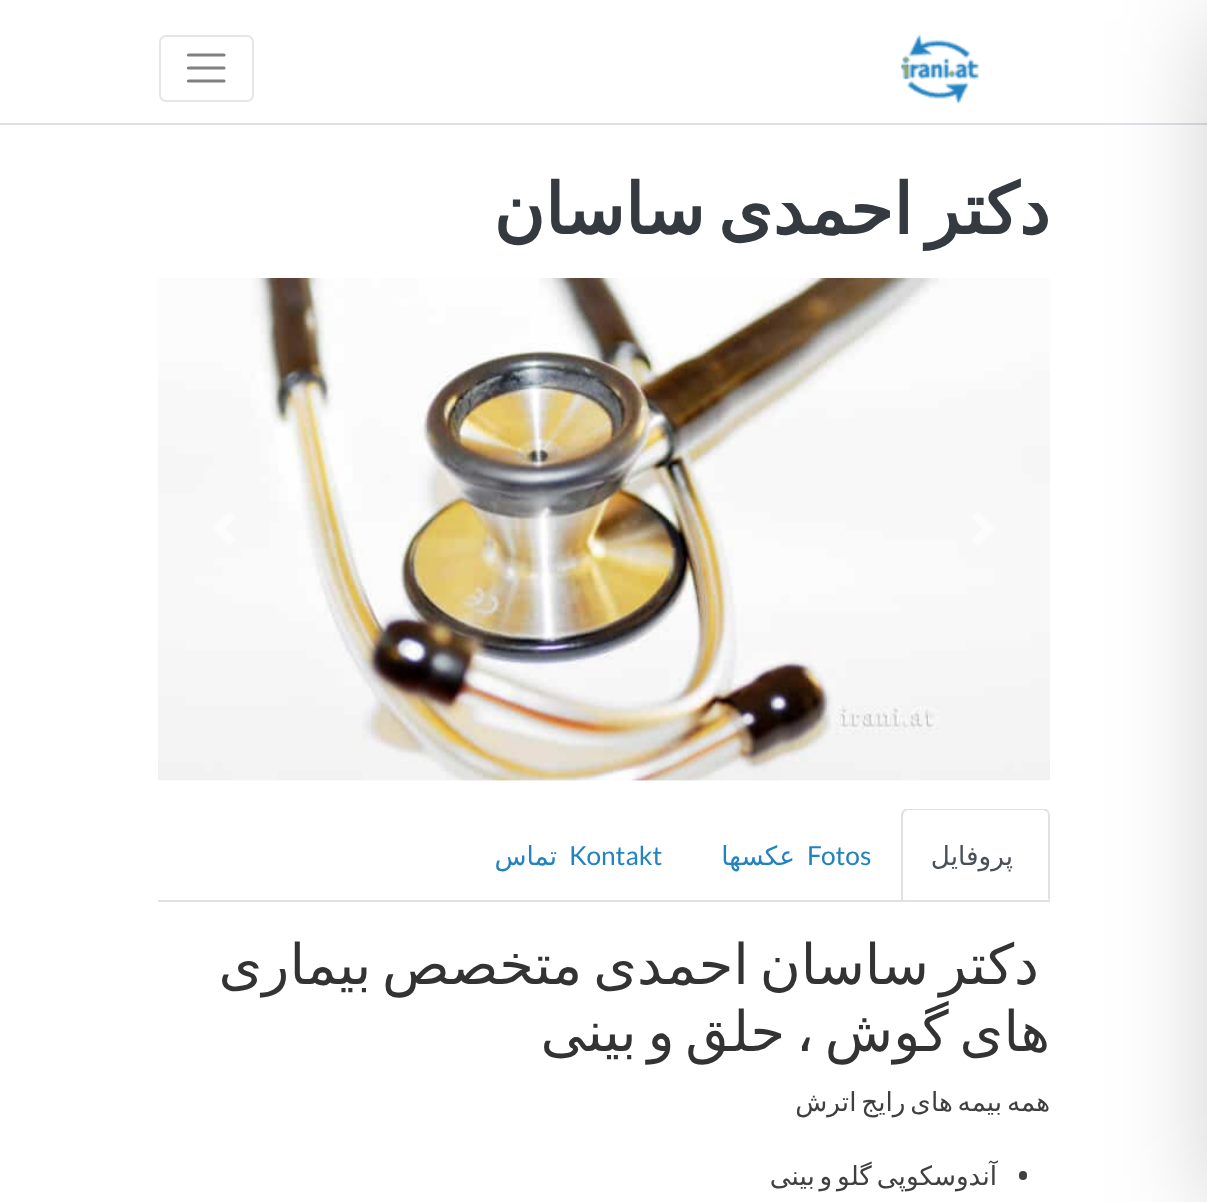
<!DOCTYPE html>
<meta charset="utf-8">
<style>body { margin: 0 } canvas { display: block }</style>
<canvas id="canvas" width="1207" height="1202"></canvas>
<img id="img1" src="img_01.png" hidden>
<img id="img2" src="img_02.png" hidden>
<script>
window.onload = function () {
	const canvas = document.getElementById("canvas");
	const ctx = canvas.getContext("2d");
	ctx.miterLimit = 4;
	ctx.fontKerning = "normal";
	function txt(s, x, y) {
		ctx.fillText(s, x, y);
	}
	function fill(x, y, w, h) {
		ctx.fillRect(x, y, w, h);
	}
	function round(x, y, w, h, r) {
		ctx.beginPath();
		ctx.roundRect(x, y, w, h, r);
		ctx.fill();
	}
	function img(id, x, y, w, h) {
		ctx.drawImage(document.getElementById(id), x, y, w, h);
	}

	ctx.fillStyle = "#FFFFFF";
	fill(0, 0, 1207, 1202);
	ctx.fillStyle = "#DEE2E6";
	fill(0, 123, 1207, 2);
	ctx.fillStyle = "rgba(0, 0, 0, 0.2)";
	ctx.filter = "blur(52.5px)";
	ctx.beginPath();
	ctx.rect(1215, 18, 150, 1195);
	ctx.fill();
	ctx.filter = "none";
	img("img1", 900, 34, 79, 70);
	ctx.beginPath();
	ctx.roundRect(160, 36, 93, 65, 6);
	ctx.strokeStyle = "#E6E6E6";
	ctx.lineWidth = 2;
	ctx.stroke();
	ctx.beginPath();
	ctx.moveTo(188.5, 55);
	ctx.lineTo(224, 55);
	ctx.moveTo(188.5, 68);
	ctx.lineTo(224, 68);
	ctx.moveTo(188.5, 81);
	ctx.lineTo(224, 81);
	ctx.strokeStyle = "#808080";
	ctx.lineWidth = 3.2;
	ctx.lineCap = "round";
	ctx.stroke();
	img("img2", 158, 278, 892, 503);
	ctx.fillStyle = "#FCFCFC";
	ctx.beginPath();
	ctx.moveTo(978, 511);
	ctx.lineTo(971.5, 517.5);
	ctx.lineTo(982.5, 528.5);
	ctx.lineTo(971.5, 539.5);
	ctx.lineTo(978, 546);
	ctx.lineTo(995.5, 528.5);
	ctx.closePath();
	ctx.fill();
	ctx.beginPath();
	ctx.moveTo(229.5, 511);
	ctx.lineTo(212, 528.5);
	ctx.lineTo(229.5, 546);
	ctx.lineTo(236, 539.5);
	ctx.lineTo(225, 528.5);
	ctx.lineTo(236, 517.5);
	ctx.closePath();
	ctx.fill();
	ctx.fillStyle = "#DEE2E6";
	fill(158, 900, 892, 2);
	ctx.save();
	ctx.beginPath();
	ctx.rect(158, 809, 892, 91);
	ctx.clip();
	ctx.beginPath();
	ctx.moveTo(908, 810);
	ctx.bezierCurveTo(907, 810, 905, 811, 904, 812);
	ctx.lineTo(903, 810);
	ctx.bezierCurveTo(909, 804, 926, 808, 929, 808);
	ctx.lineTo(1045, 808);
	ctx.lineTo(1048, 810);
	ctx.lineTo(1047, 812);
	ctx.bezierCurveTo(1046, 811, 1044, 810, 1043, 810);
	ctx.closePath();
	ctx.fill();
	ctx.restore();
	ctx.beginPath();
	ctx.moveTo(1050, 901);
	ctx.lineTo(1050, 816);
	ctx.bezierCurveTo(1050, 814, 1049, 812, 1048, 810);
	ctx.lineTo(1047, 812);
	ctx.bezierCurveTo(1048, 813, 1048, 814, 1048, 816);
	ctx.lineTo(1048, 899);
	ctx.closePath();
	ctx.fill();
	ctx.save();
	ctx.beginPath();
	ctx.rect(158, 809, 892, 91);
	ctx.clip();
	ctx.fillStyle = "#FFFFFF";
	ctx.beginPath();
	ctx.moveTo(1050, 901);
	ctx.lineTo(902, 901);
	ctx.lineTo(903, 900);
	ctx.lineTo(1048, 900);
	ctx.lineTo(1048, 899);
	ctx.closePath();
	ctx.fill();
	ctx.restore();
	ctx.beginPath();
	ctx.moveTo(901, 814);
	ctx.lineTo(903, 810);
	ctx.lineTo(904, 812);
	ctx.bezierCurveTo(904, 813, 903, 814, 903, 816);
	ctx.lineTo(903, 900);
	ctx.lineTo(901, 901);
	ctx.closePath();
	ctx.fill();
	ctx.fillStyle = "#3F3F3F";
	round(1019, 1171, 8, 9, 4);
	ctx.wordSpacing = "-9px";
	ctx.direction = "rtl";
	ctx.font = "bold 70px DejaVu Sans";
	ctx.fillStyle = "#343A40";
	txt("دکتر احمدی ساسان", 1050, 234);
	ctx.wordSpacing = "0px";
	ctx.font = "26.25px DejaVu Sans";
	ctx.fillStyle = "#495057";
	txt("پروفایل", 1013, 865);
	ctx.direction = "ltr";
	ctx.font = "26.25px Lato";
	ctx.fillStyle = "#2382C0";
	txt("Fotos", 807, 865);
	ctx.direction = "rtl";
	ctx.font = "26.25px DejaVu Sans";
	txt("عکسها", 795, 865);
	ctx.direction = "ltr";
	ctx.font = "26.25px Lato";
	txt("Kontakt", 569, 865);
	ctx.direction = "rtl";
	ctx.font = "26.25px DejaVu Sans";
	txt("تماس", 557, 865);
	ctx.wordSpacing = "-7px";
	ctx.font = "56px DejaVu Sans";
	ctx.fillStyle = "#333333";
	txt("دکتر ساسان احمدی متخصص بیماری", 1039, 984);
	txt("های گوش ، حلق و بینی", 1050, 1051);
	ctx.wordSpacing = "-3.5px";
	ctx.font = "26.25px DejaVu Sans";
	ctx.fillStyle = "#3F3F3F";
	txt("همه بیمه های رایج اترش", 1050, 1111);
	txt("آندوسکوپی گلو و بینی", 997, 1185);
};
</script>
